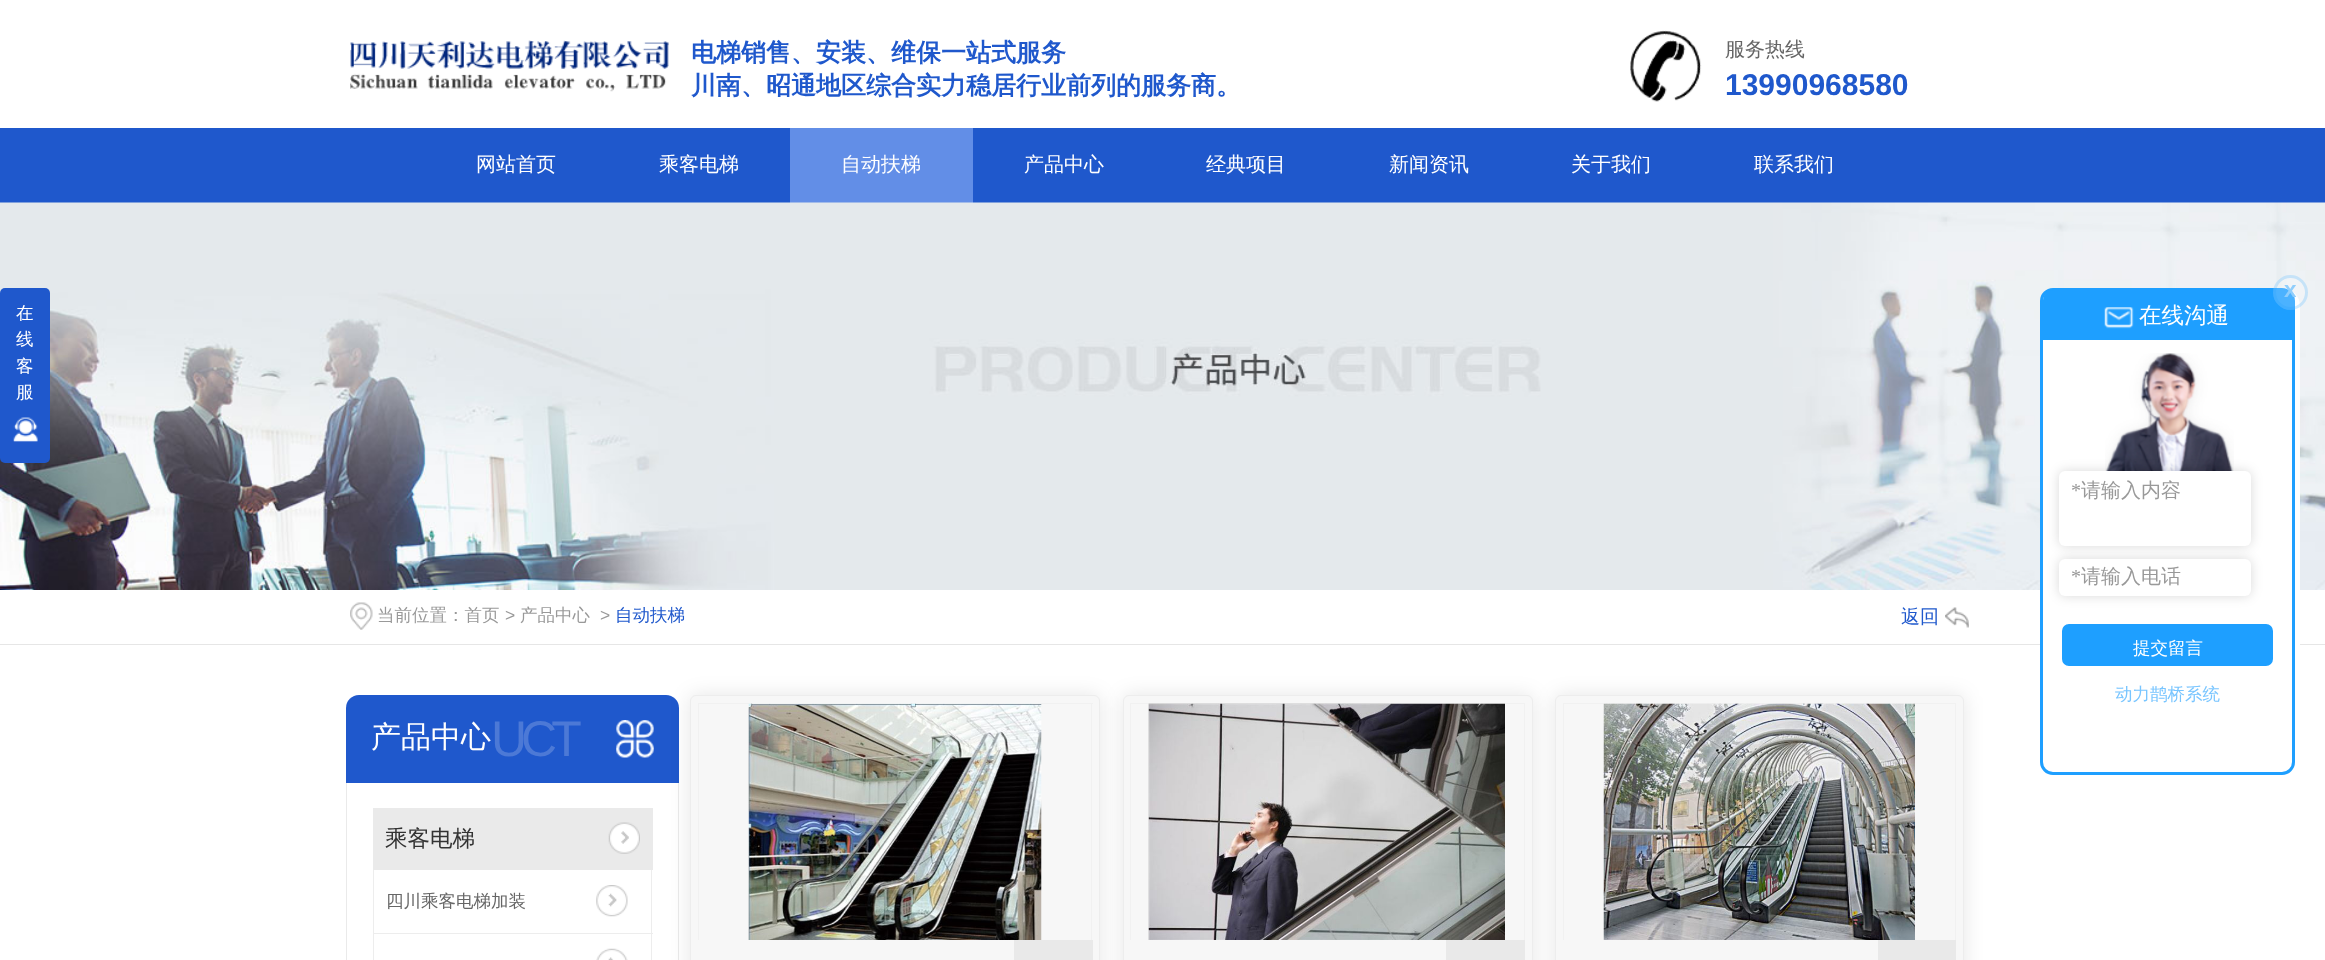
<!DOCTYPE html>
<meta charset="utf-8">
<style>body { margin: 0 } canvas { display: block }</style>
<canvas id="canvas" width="2325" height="960"></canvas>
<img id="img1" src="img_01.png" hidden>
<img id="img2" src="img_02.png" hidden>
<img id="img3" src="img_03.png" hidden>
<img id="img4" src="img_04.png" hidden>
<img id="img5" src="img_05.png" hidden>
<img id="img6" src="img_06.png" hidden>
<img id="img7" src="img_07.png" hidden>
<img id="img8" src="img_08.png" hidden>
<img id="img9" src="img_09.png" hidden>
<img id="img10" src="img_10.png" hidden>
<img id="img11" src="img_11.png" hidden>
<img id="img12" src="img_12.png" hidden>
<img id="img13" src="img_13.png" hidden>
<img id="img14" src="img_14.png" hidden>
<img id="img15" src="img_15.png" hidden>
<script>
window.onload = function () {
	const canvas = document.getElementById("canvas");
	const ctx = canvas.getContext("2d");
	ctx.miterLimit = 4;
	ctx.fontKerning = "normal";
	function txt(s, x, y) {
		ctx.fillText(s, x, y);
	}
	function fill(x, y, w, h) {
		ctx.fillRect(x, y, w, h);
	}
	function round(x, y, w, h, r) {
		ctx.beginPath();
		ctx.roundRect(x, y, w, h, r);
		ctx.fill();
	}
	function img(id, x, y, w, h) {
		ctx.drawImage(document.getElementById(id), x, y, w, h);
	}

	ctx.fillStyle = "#FFFFFF";
	fill(0, 0, 2325, 960);
	img("img1", 350, 40, 319, 52);
	img("img2", 1630, 30, 72, 72);
	ctx.fillStyle = "#1F58CC";
	fill(0, 128, 2325, 75);
	ctx.fillStyle = "#628EE7";
	fill(790, 128, 183, 75);
	img("img3", 0, 202, 2325, 388);
	ctx.fillStyle = "#1F58CC";
	round(0, 288, 50, 175, 5);
	img("img4", 13, 417, 25, 25);
	ctx.fillStyle = "#E6E6E6";
	fill(0, 644, 2325, 1);
	ctx.fillStyle = "#FFFFFF";
	round(2040, 288, 260, 487, 18);
	ctx.beginPath();
	ctx.roundRect(2041.5, 289.5, 252, 484, 11.5);
	ctx.strokeStyle = "#1E9FFF";
	ctx.lineWidth = 3;
	ctx.stroke();
	ctx.fillStyle = "#1E9FFF";
	ctx.beginPath();
	ctx.roundRect(2043, 290, 250, 50, [10, 10, 0, 0]);
	ctx.fill();
	ctx.fillStyle = "rgba(255, 255, 255, 0.2)";
	ctx.beginPath();
	ctx.arc(2290.5, 292.5, 17.5, 0, Math.PI * 2);
	ctx.fill();
	ctx.beginPath();
	ctx.arc(2290.5, 292.5, 16, 0, Math.PI * 2);
	ctx.strokeStyle = "rgba(30, 159, 255, 0.2)";
	ctx.stroke();
	img("img5", 2104, 307, 30, 22);
	img("img6", 2105, 353, 129, 118);
	ctx.fillStyle = "rgba(0, 0, 0, 0.15)";
	ctx.filter = "blur(6px)";
	ctx.beginPath();
	ctx.roundRect(2059, 559, 192, 37, 6);
	ctx.fill();
	ctx.filter = "none";
	ctx.fillStyle = "#FFFFFF";
	round(2059, 559, 192, 37, 6);
	ctx.fillStyle = "rgba(0, 0, 0, 0.15)";
	ctx.filter = "blur(6px)";
	ctx.beginPath();
	ctx.roundRect(2059, 471, 192, 75, 6);
	ctx.fill();
	ctx.filter = "none";
	ctx.fillStyle = "#FFFFFF";
	round(2059, 471, 192, 75, 6);
	ctx.fillStyle = "#1E9FFF";
	ctx.beginPath();
	ctx.roundRect(2060.5, 622.5, 214, 45, 8.5);
	ctx.fill();
	ctx.strokeStyle = "#FFFFFF";
	ctx.stroke();
	img("img7", 350, 602, 23, 28);
	img("img8", 1945, 607, 24, 21);
	ctx.fillStyle = "#1F58CC";
	ctx.beginPath();
	ctx.roundRect(346, 695, 333, 88, [13, 13, 0, 0]);
	ctx.fill();
	img("img9", 616, 720, 38, 38);
	ctx.fillStyle = "#EAEAEA";
	fill(678, 783, 1, 177);
	fill(346, 783, 1, 177);
	fill(373, 808, 280, 62);
	img("img10", 608, 822, 32, 32);
	ctx.fillStyle = "#EDEDED";
	fill(651, 870, 1, 90);
	fill(373, 933, 280, 1);
	fill(373, 870, 1, 90);
	img("img11", 596, 885, 32, 32);
	img("img12", 596, 948, 32, 12);
	ctx.fillStyle = "rgba(0, 0, 0, 0.1)";
	ctx.filter = "blur(10px)";
	ctx.beginPath();
	ctx.roundRect(690, 695, 410, 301, 6);
	ctx.fill();
	ctx.filter = "none";
	ctx.fillStyle = "#F7F7F7";
	ctx.beginPath();
	ctx.roundRect(690.5, 695.5, 409, 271, 5.5);
	ctx.fill();
	ctx.strokeStyle = "#EDEDED";
	ctx.lineWidth = 1;
	ctx.stroke();
	ctx.fillStyle = "#F1F1F1";
	fill(698, 703, 395, 1);
	fill(1091, 703, 1, 237);
	fill(698, 703, 1, 237);
	img("img13", 748, 703, 294, 237);
	ctx.fillStyle = "#E9E9E9";
	fill(1014, 940, 79, 20);
	ctx.fillStyle = "rgba(0, 0, 0, 0.1)";
	ctx.filter = "blur(10px)";
	ctx.beginPath();
	ctx.roundRect(1123, 695, 410, 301, 6);
	ctx.fill();
	ctx.filter = "none";
	ctx.fillStyle = "#F7F7F7";
	ctx.beginPath();
	ctx.roundRect(1123.5, 695.5, 409, 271, 5.5);
	ctx.fill();
	ctx.stroke();
	ctx.fillStyle = "#F1F1F1";
	fill(1130, 703, 395, 1);
	fill(1524, 703, 1, 237);
	fill(1130, 703, 1, 237);
	img("img14", 1148, 703, 357, 237);
	ctx.fillStyle = "#E9E9E9";
	fill(1446, 940, 79, 20);
	ctx.fillStyle = "rgba(0, 0, 0, 0.1)";
	ctx.filter = "blur(10px)";
	ctx.beginPath();
	ctx.roundRect(1555, 695, 409, 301, 6);
	ctx.fill();
	ctx.filter = "none";
	ctx.fillStyle = "#F7F7F7";
	ctx.beginPath();
	ctx.roundRect(1555.5, 695.5, 408, 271, 5.5);
	ctx.fill();
	ctx.stroke();
	ctx.fillStyle = "#F1F1F1";
	fill(1563, 703, 393, 1);
	fill(1955, 703, 1, 237);
	fill(1563, 703, 1, 237);
	img("img15", 1603, 703, 312, 237);
	ctx.fillStyle = "#E9E9E9";
	fill(1878, 940, 78, 20);
	ctx.font = "bold 25px WenQuanYi Zen Hei";
	ctx.fillStyle = "#1F58CC";
	txt("电梯销售、安装、维保一站式服务", 691, 61);
	txt("川南、昭通地区综合实力稳居行业前列的服务商。", 691, 94);
	ctx.font = "500 20px WenQuanYi Zen Hei";
	ctx.fillStyle = "#666666";
	txt("服务热线", 1725, 56);
	ctx.font = "bold 30px Liberation Sans";
	ctx.fillStyle = "#1F58CC";
	txt("13990968580", 1725, 95);
	ctx.font = "500 20px WenQuanYi Zen Hei";
	ctx.fillStyle = "#FFFFFF";
	txt("网站首页", 476, 171);
	txt("乘客电梯", 659, 171);
	txt("自动扶梯", 841, 171);
	txt("产品中心", 1024, 171);
	txt("经典项目", 1206, 171);
	txt("新闻资讯", 1389, 171);
	txt("关于我们", 1571, 171);
	txt("联系我们", 1754, 171);
	ctx.font = "500 17.5px WenQuanYi Zen Hei";
	txt("在", 16, 319);
	txt("线", 16, 345);
	txt("客", 16, 372);
	txt("服", 16, 398);
	ctx.font = "bold 22.5px Liberation Sans";
	ctx.fillStyle = "#90CEFC";
	txt("x", 2284, 297);
	ctx.font = "500 22.5px WenQuanYi Zen Hei";
	ctx.fillStyle = "#FFFFFF";
	txt("在线沟通", 2139, 323);
	ctx.font = "20px Liberation Serif";
	ctx.fillStyle = "#999999";
	txt("*", 2071, 497);
	ctx.font = "500 20px WenQuanYi Zen Hei";
	txt("请输入内容", 2081, 497);
	ctx.font = "20px Liberation Serif";
	txt("*", 2071, 583);
	ctx.font = "500 20px WenQuanYi Zen Hei";
	txt("请输入电话", 2081, 583);
	ctx.font = "500 17.5px WenQuanYi Zen Hei";
	ctx.fillStyle = "#FFFFFF";
	txt("提交留言", 2133, 654);
	ctx.fillStyle = "#78C5FF";
	txt("动力鹊桥系统", 2115, 700);
	ctx.fillStyle = "#999999";
	txt("当前位置：首页", 377, 621);
	ctx.font = "17.5px Liberation Sans";
	txt(">", 505, 621);
	ctx.font = "500 17.5px WenQuanYi Zen Hei";
	txt("产品中心", 520, 621);
	ctx.font = "17.5px Liberation Sans";
	txt(">", 600, 621);
	ctx.font = "500 17.5px WenQuanYi Zen Hei";
	ctx.fillStyle = "#1F58CC";
	txt("自动扶梯", 615, 621);
	ctx.font = "500 19px WenQuanYi Zen Hei";
	txt("返回", 1901, 623);
	ctx.font = "500 30px WenQuanYi Zen Hei";
	ctx.fillStyle = "#FFFFFF";
	txt("产品中心", 371, 747);
	ctx.letterSpacing = "-6px";
	ctx.font = "50px Liberation Sans";
	ctx.fillStyle = "#4C79D6";
	txt("UCT", 491, 756);
	ctx.letterSpacing = "0px";
	ctx.font = "500 22.5px WenQuanYi Zen Hei";
	ctx.fillStyle = "#333333";
	txt("乘客电梯", 385, 846);
	ctx.font = "500 17.5px WenQuanYi Zen Hei";
	ctx.fillStyle = "#666666";
	txt("四川乘客电梯加装", 386, 907);
};
</script>
